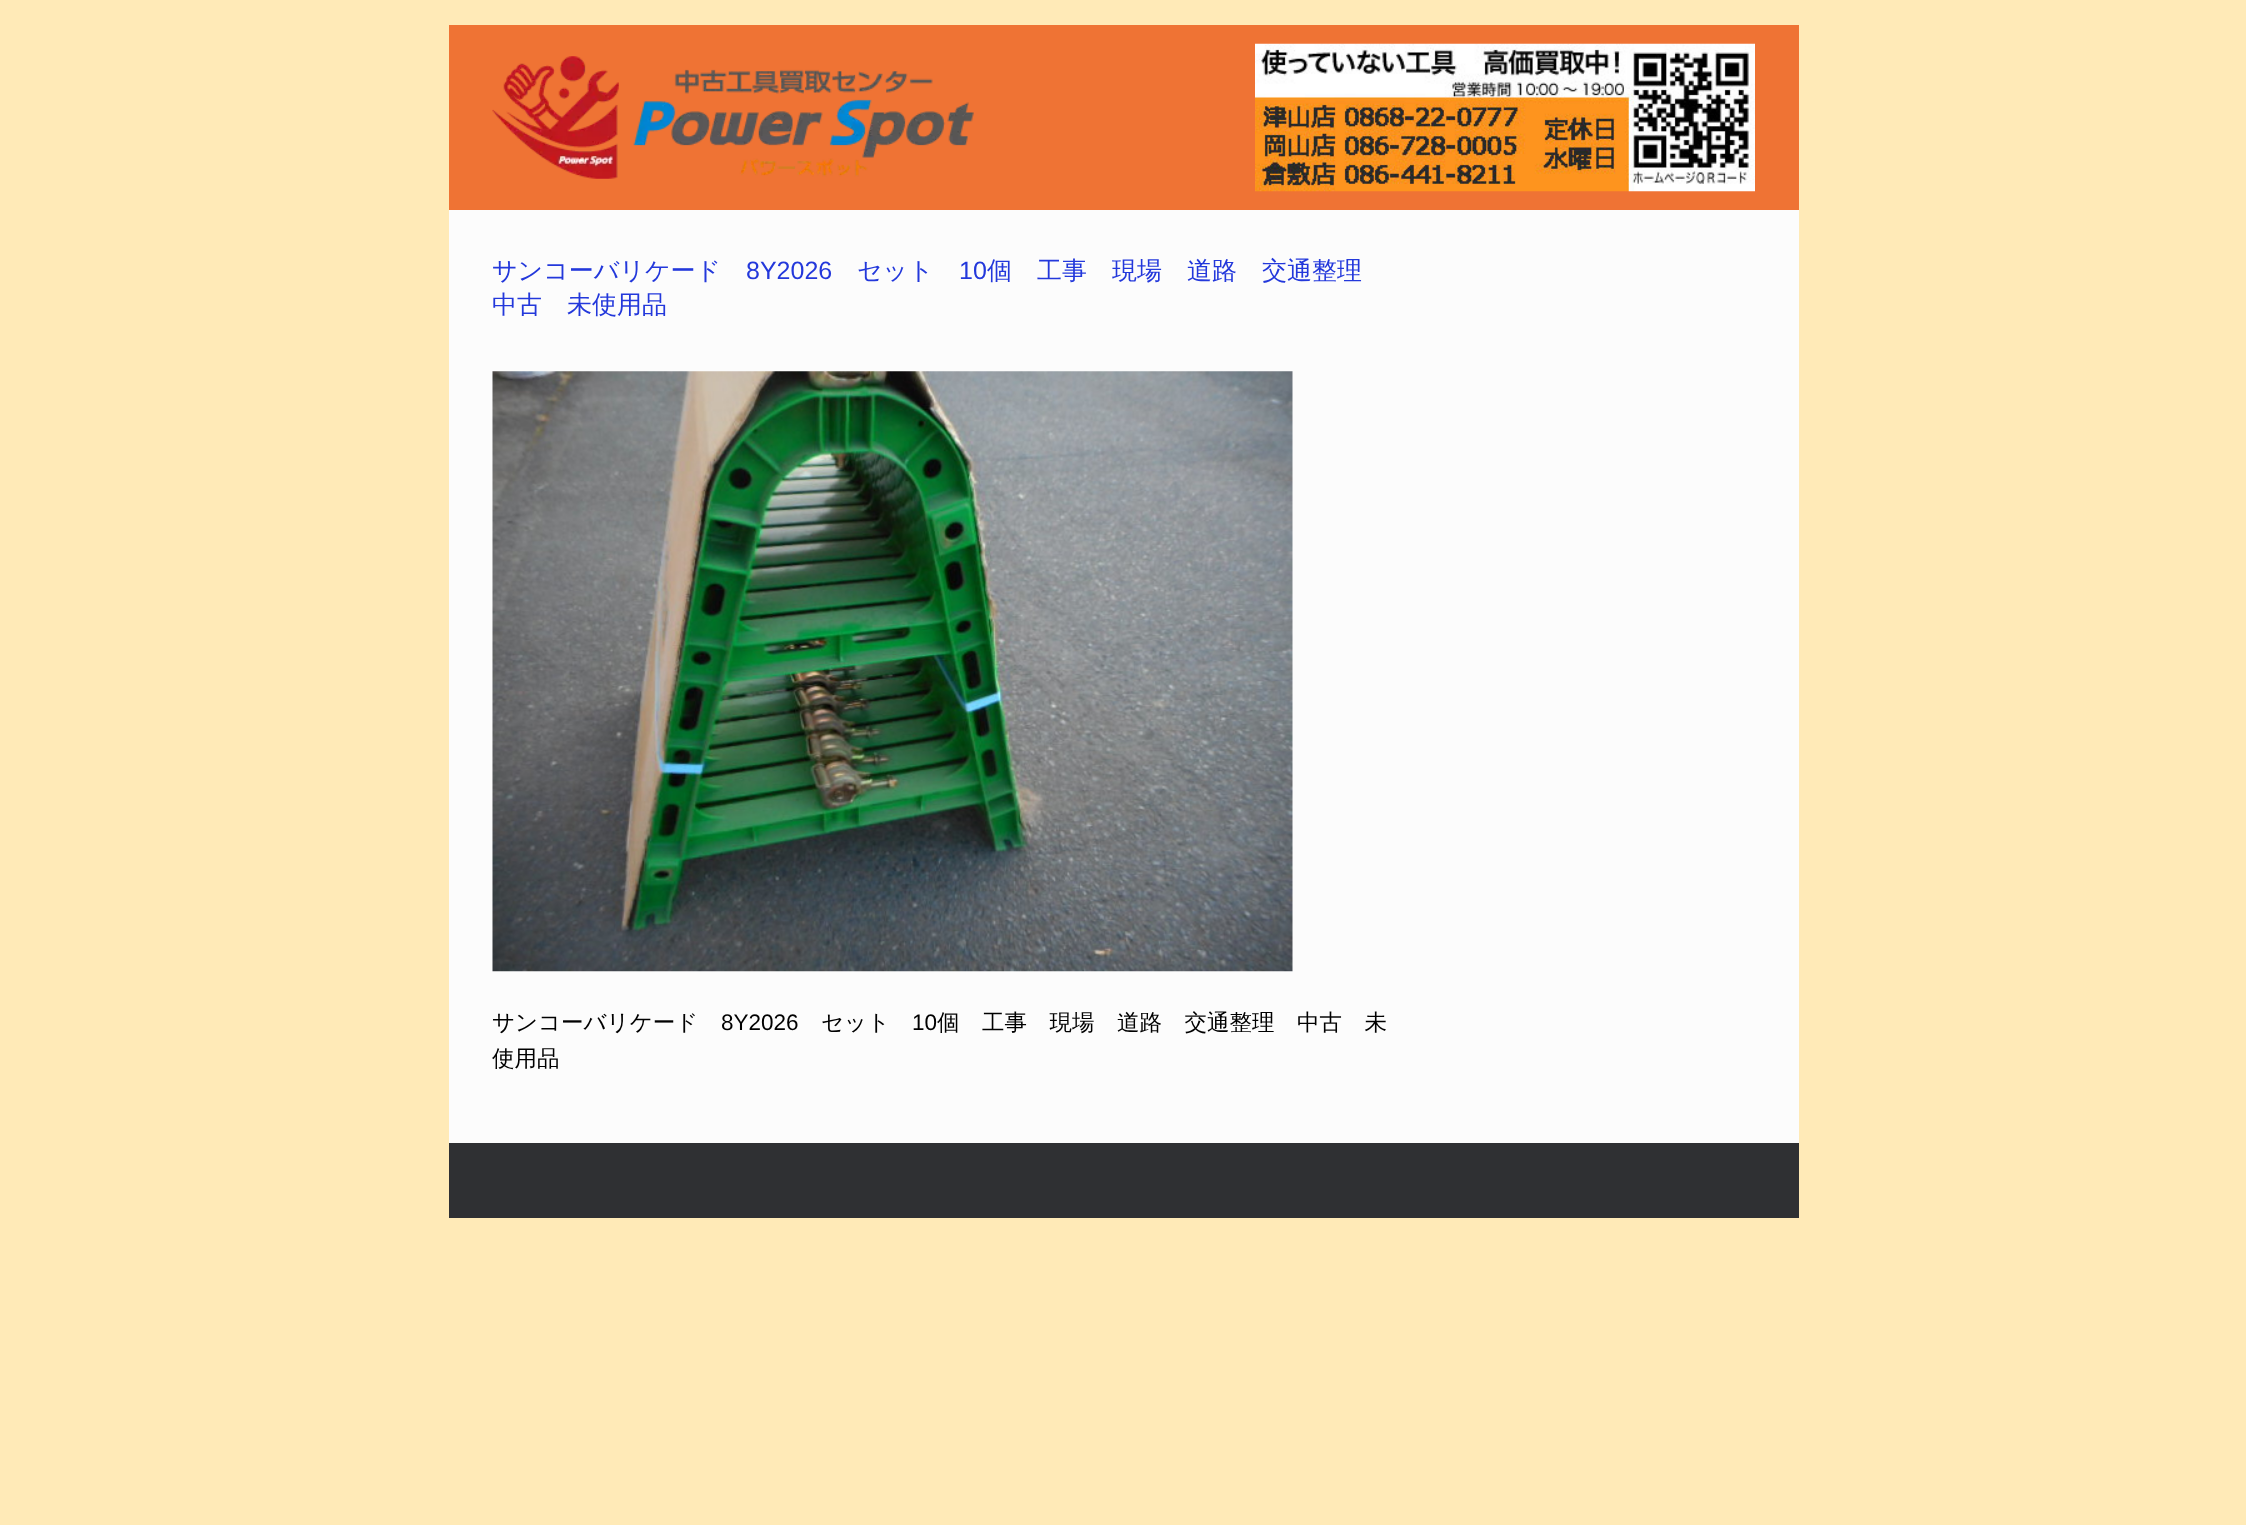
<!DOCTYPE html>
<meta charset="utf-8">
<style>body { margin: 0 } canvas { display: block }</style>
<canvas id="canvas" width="2246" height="1525"></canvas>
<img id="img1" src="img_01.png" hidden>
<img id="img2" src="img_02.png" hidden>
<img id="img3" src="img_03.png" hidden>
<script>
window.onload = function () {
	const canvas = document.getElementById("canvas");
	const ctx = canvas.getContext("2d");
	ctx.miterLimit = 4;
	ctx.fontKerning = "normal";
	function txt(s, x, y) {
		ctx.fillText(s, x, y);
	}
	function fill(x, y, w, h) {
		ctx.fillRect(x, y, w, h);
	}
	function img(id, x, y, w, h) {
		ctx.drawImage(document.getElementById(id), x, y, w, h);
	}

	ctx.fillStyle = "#FFEAB7";
	fill(0, 0, 2246, 1525);
	ctx.fillStyle = "#EF7334";
	fill(449, 25, 1350, 185);
	img("img1", 492, 56, 482, 123);
	img("img2", 1255, 43, 500, 149);
	ctx.fillStyle = "#FCFCFC";
	fill(449, 210, 1350, 933);
	img("img3", 492, 371, 801, 601);
	ctx.fillStyle = "#2F3033";
	fill(449, 1143, 1350, 75);
	ctx.font = "500 25px WenQuanYi Zen Hei";
	ctx.fillStyle = "#2338DB";
	txt("サンコーバリケード", 492, 279);
	ctx.font = "25px Liberation Sans";
	txt("8Y2026", 746, 279);
	ctx.font = "500 25px WenQuanYi Zen Hei";
	txt("セット", 857, 279);
	ctx.font = "25px Liberation Sans";
	txt("10", 959, 279);
	ctx.font = "500 25px WenQuanYi Zen Hei";
	txt("個　工事　現場　道路　交通整理", 987, 279);
	txt("中古　未使用品", 492, 313);
	ctx.font = "500 22.5px WenQuanYi Zen Hei";
	ctx.fillStyle = "#000000";
	txt("サンコーバリケード", 492, 1030);
	ctx.font = "22.5px Liberation Sans";
	txt("8Y2026", 721, 1030);
	ctx.font = "500 22.5px WenQuanYi Zen Hei";
	txt("セット", 821, 1030);
	ctx.font = "22.5px Liberation Sans";
	txt("10", 912, 1030);
	ctx.font = "500 22.5px WenQuanYi Zen Hei";
	txt("個　工事　現場　道路　交通整理　中古　未", 937, 1030);
	txt("使用品", 492, 1066);
};
</script>
